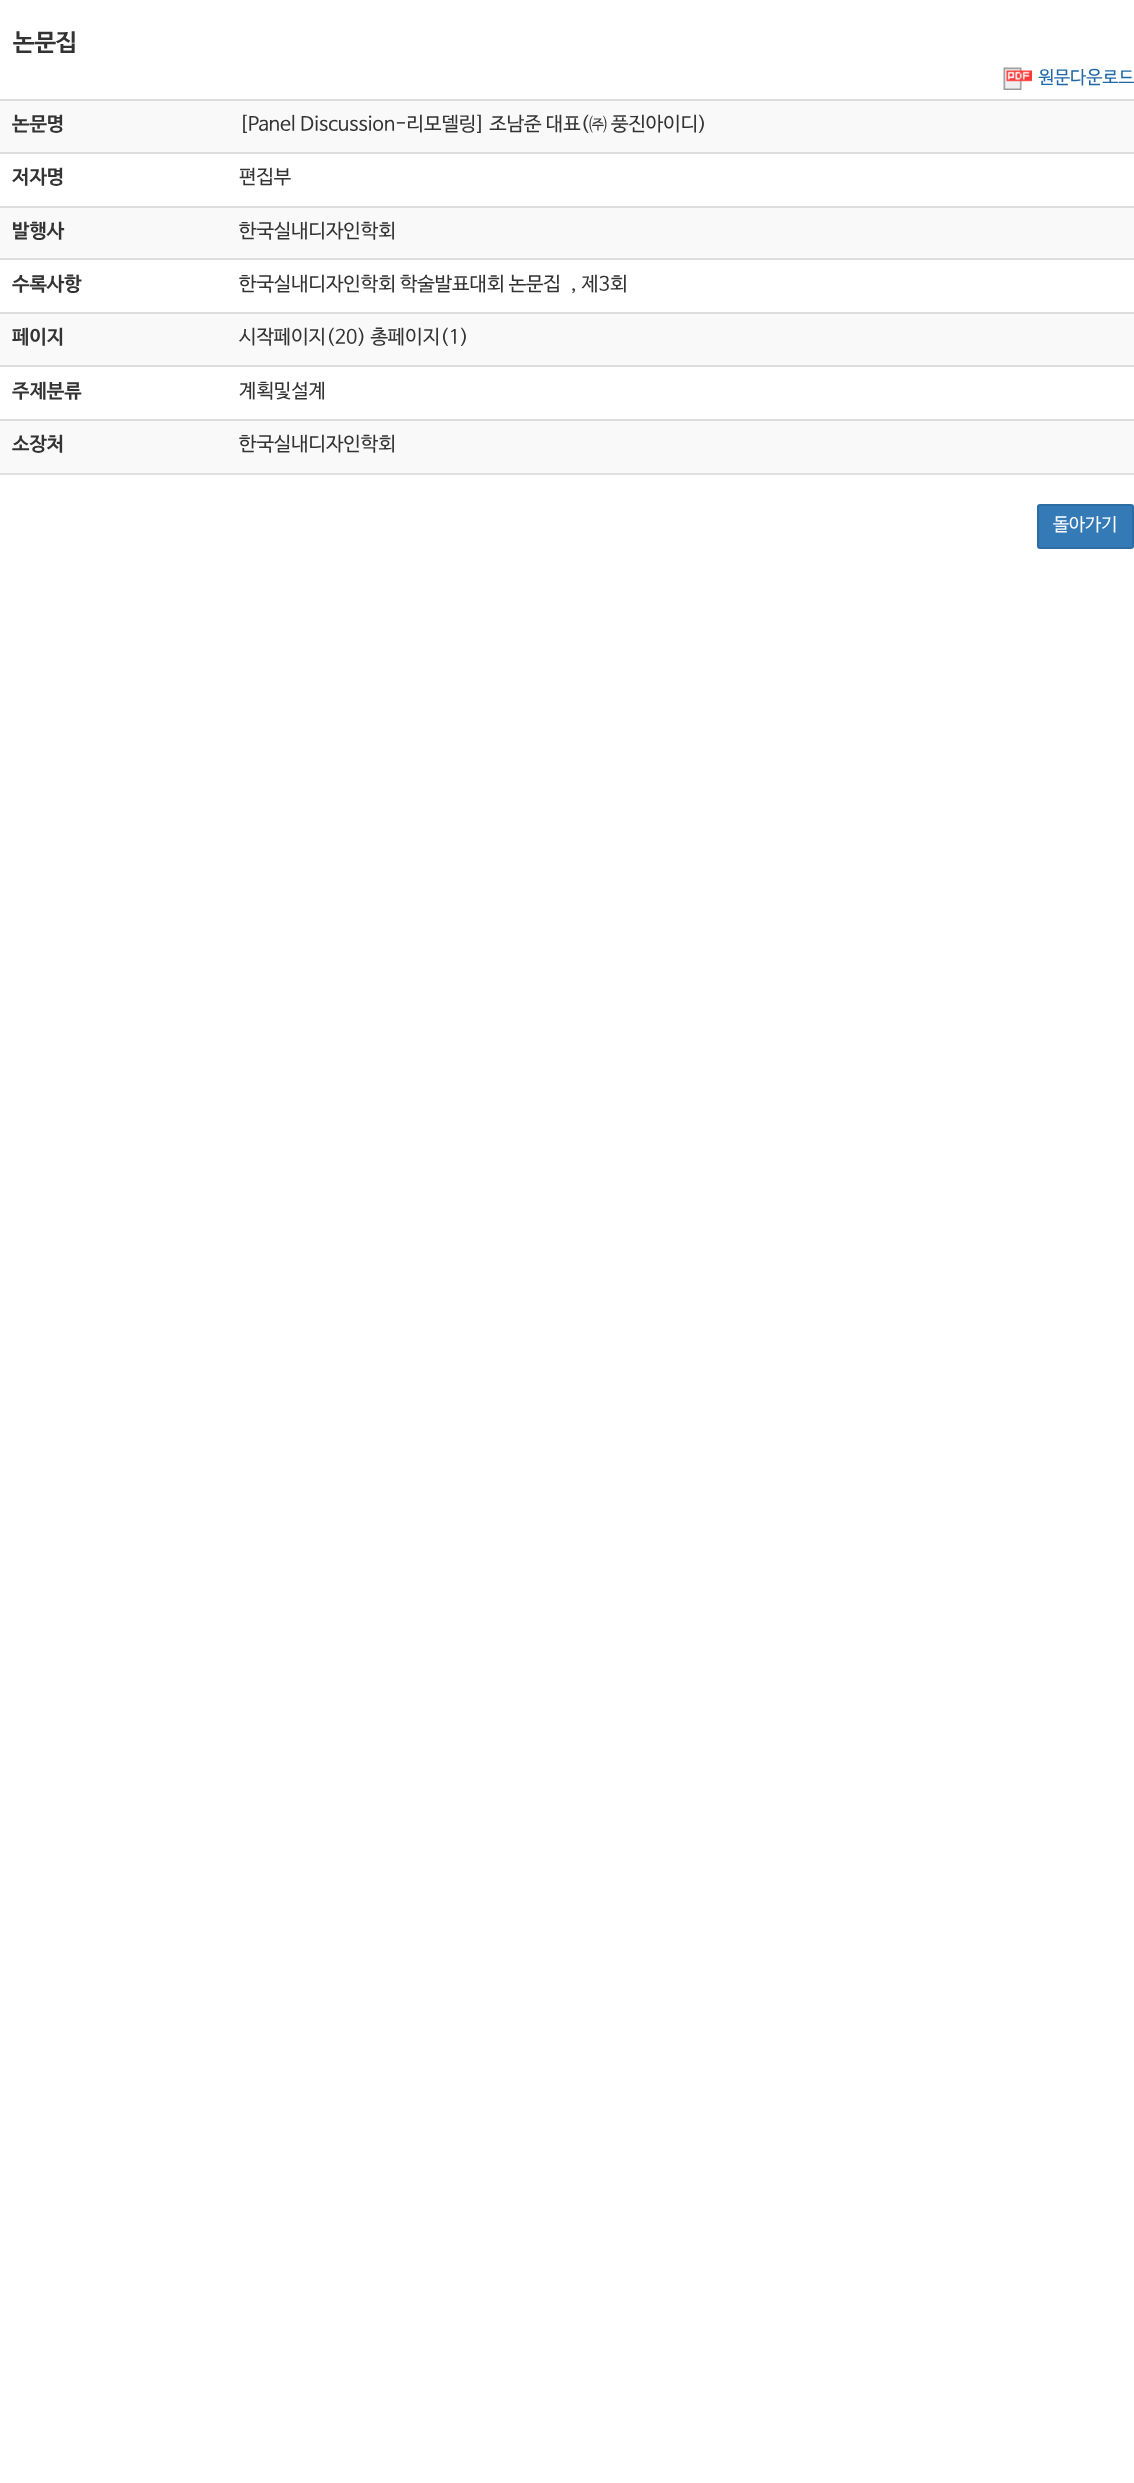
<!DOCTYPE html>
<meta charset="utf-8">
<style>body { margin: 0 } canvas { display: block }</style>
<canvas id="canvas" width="1134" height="2483"></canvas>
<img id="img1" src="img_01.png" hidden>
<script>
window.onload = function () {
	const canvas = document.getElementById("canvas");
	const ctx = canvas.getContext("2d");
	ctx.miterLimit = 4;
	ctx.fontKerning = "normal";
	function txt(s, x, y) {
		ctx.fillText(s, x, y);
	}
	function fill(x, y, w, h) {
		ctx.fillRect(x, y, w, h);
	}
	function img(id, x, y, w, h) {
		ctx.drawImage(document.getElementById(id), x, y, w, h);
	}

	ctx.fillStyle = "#FFFFFF";
	fill(0, 0, 1134, 2483);
	ctx.fillStyle = "#DFDFDF";
	fill(0, 473, 1134, 2);
	img("img1", 1003, 67, 29, 23);
	ctx.fillStyle = "#F9F9F9";
	fill(0, 101, 1134, 51);
	ctx.fillStyle = "#DDDDDD";
	fill(0, 99, 1134, 2);
	fill(0, 152, 1134, 2);
	ctx.fillStyle = "#F9F9F9";
	fill(0, 208, 1134, 50);
	ctx.fillStyle = "#DDDDDD";
	fill(0, 206, 1134, 2);
	fill(0, 258, 1134, 2);
	ctx.fillStyle = "#F9F9F9";
	fill(0, 314, 1134, 51);
	ctx.fillStyle = "#DDDDDD";
	fill(0, 312, 1134, 2);
	fill(0, 365, 1134, 2);
	ctx.fillStyle = "#F9F9F9";
	fill(0, 421, 1134, 52);
	ctx.fillStyle = "#DDDDDD";
	fill(0, 419, 1134, 2);
	ctx.fillStyle = "#337AB7";
	ctx.beginPath();
	ctx.roundRect(1038, 505, 95, 43, 2);
	ctx.fill();
	ctx.strokeStyle = "#2E6DA4";
	ctx.lineWidth = 2;
	ctx.stroke();
	ctx.font = "bold 24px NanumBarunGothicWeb";
	ctx.fillStyle = "#333333";
	txt("논문집", 13, 50);
	ctx.font = "18px NanumBarunGothicWeb";
	ctx.fillStyle = "#1F67A6";
	txt("원문다운로드", 1038, 83);
	ctx.font = "bold 19.5px NanumBarunGothicWeb";
	ctx.fillStyle = "#333333";
	txt("논문명", 12, 130);
	ctx.font = "19.5px NanumBarunGothicWeb";
	txt("[Panel Discussion-리모델링] 조남준 대표(㈜ 풍진아이디)", 239, 130);
	ctx.font = "bold 19.5px NanumBarunGothicWeb";
	txt("저자명", 12, 183);
	ctx.font = "19.5px NanumBarunGothicWeb";
	txt("편집부", 239, 183);
	ctx.font = "bold 19.5px NanumBarunGothicWeb";
	txt("발행사", 12, 237);
	ctx.font = "19.5px NanumBarunGothicWeb";
	txt("한국실내디자인학회", 239, 237);
	ctx.font = "bold 19.5px NanumBarunGothicWeb";
	txt("수록사항", 12, 290);
	ctx.font = "19.5px NanumBarunGothicWeb";
	txt("한국실내디자인학회 학술발표대회 논문집", 239, 290);
	txt(", 제3회", 571, 290);
	ctx.font = "bold 19.5px NanumBarunGothicWeb";
	txt("페이지", 12, 343);
	ctx.font = "19.5px NanumBarunGothicWeb";
	txt("시작페이지(20) 총페이지(1)", 239, 343);
	ctx.font = "bold 19.5px NanumBarunGothicWeb";
	txt("주제분류", 12, 397);
	ctx.font = "19.5px NanumBarunGothicWeb";
	txt("계획및설계", 239, 397);
	ctx.font = "bold 19.5px NanumBarunGothicWeb";
	txt("소장처", 12, 450);
	ctx.font = "19.5px NanumBarunGothicWeb";
	txt("한국실내디자인학회", 239, 450);
	ctx.font = "18px NanumBarunGothicWeb";
	ctx.fillStyle = "#FFFFFF";
	txt("돌아가기", 1053, 530);
};
</script>
